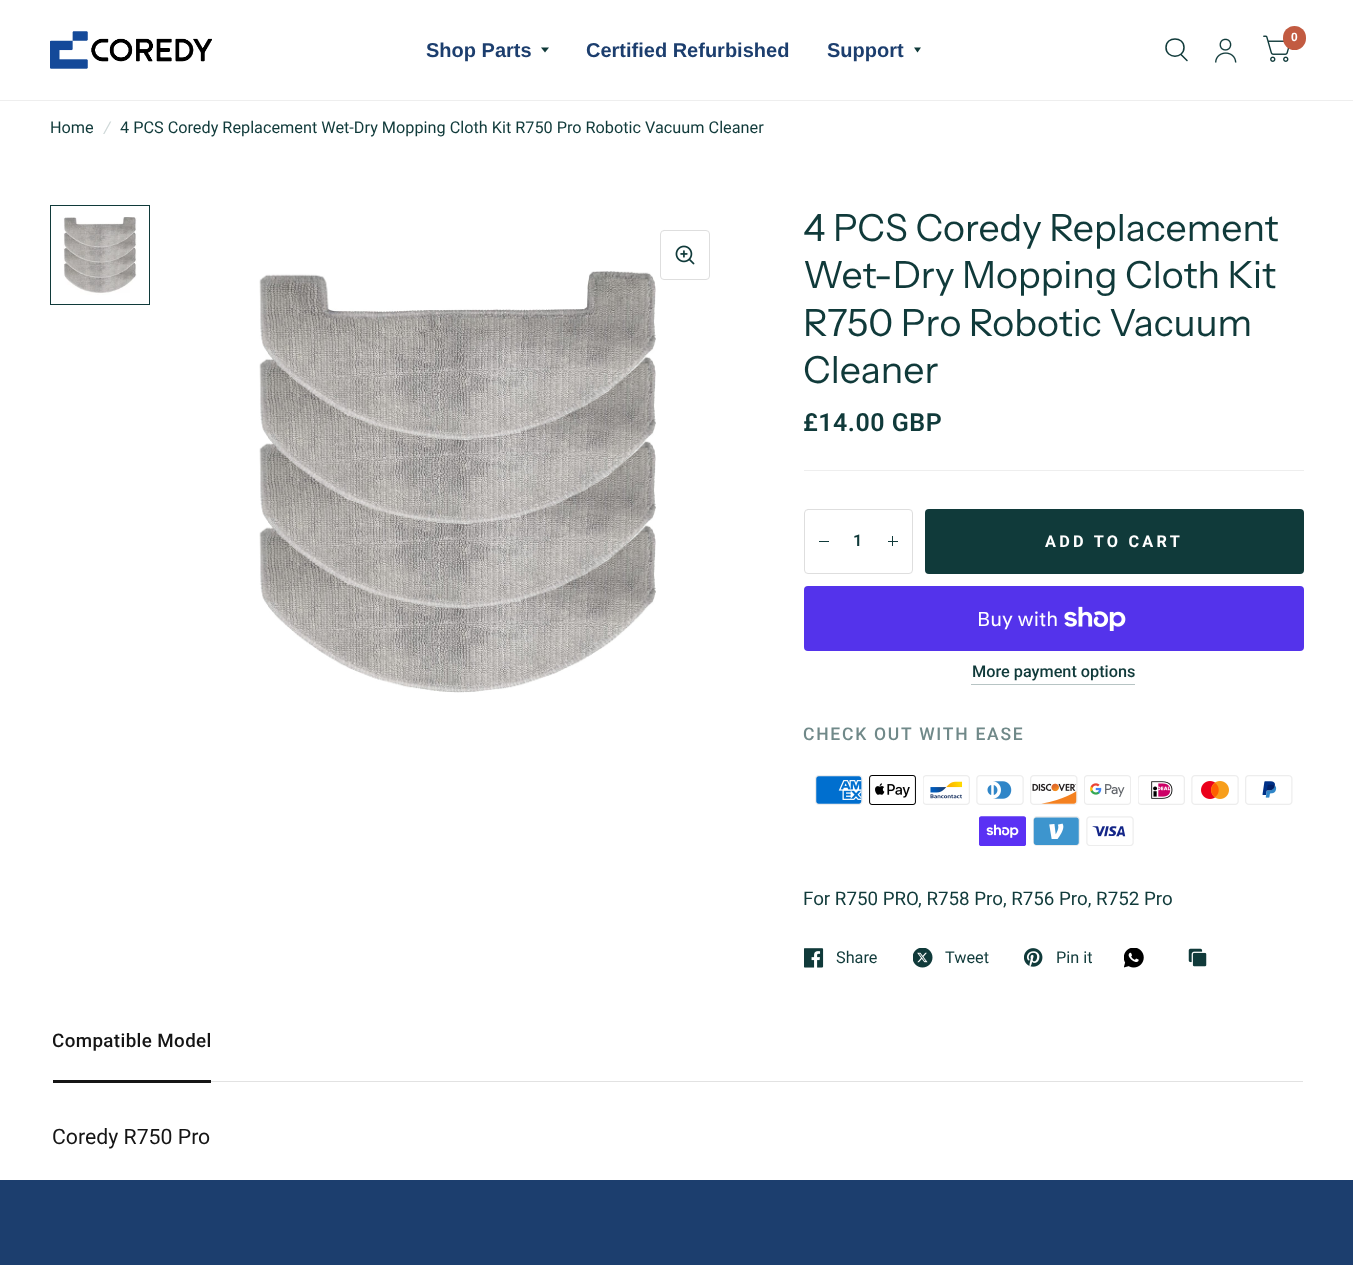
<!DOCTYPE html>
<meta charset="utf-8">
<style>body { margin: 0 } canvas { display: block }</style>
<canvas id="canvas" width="1353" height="1265"></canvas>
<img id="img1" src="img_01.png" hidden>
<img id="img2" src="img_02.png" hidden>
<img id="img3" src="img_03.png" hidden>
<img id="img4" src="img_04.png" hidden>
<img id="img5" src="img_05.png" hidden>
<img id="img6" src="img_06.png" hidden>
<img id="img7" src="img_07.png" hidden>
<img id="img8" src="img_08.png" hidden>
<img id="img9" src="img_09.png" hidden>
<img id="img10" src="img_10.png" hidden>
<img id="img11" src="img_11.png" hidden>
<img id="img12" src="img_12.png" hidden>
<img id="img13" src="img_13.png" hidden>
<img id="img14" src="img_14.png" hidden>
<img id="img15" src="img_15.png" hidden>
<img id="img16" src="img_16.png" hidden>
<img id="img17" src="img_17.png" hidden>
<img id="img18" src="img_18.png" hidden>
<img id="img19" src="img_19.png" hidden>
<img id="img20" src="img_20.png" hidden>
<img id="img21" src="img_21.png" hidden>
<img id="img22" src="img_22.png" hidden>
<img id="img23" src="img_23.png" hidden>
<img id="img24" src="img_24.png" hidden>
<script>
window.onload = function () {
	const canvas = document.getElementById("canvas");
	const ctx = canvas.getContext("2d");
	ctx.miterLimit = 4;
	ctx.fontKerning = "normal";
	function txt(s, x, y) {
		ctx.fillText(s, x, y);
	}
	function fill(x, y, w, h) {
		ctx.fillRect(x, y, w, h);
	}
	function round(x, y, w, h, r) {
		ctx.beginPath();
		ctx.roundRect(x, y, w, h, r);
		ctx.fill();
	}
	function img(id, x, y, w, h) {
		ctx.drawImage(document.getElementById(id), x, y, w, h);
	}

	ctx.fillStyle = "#FFFFFF";
	fill(0, 0, 1353, 1265);
	ctx.fillStyle = "#EEEEEE";
	fill(0, 100, 1353, 1);
	img("img1", 50, 31, 162, 38);
	img("img2", 1263, 35, 27, 27);
	ctx.fillStyle = "#C25B41";
	round(1283, 26, 23, 24, 11.5);
	ctx.beginPath();
	ctx.moveTo(1181, 54.5);
	ctx.lineTo(1187, 60.5);
	ctx.moveTo(1184, 47.5);
	ctx.bezierCurveTo(1184, 59, 1166, 59, 1166, 47.5);
	ctx.bezierCurveTo(1166, 36, 1184, 36, 1184, 47.5);
	ctx.closePath();
	ctx.strokeStyle = "#103A3A";
	ctx.lineWidth = 1.5;
	ctx.lineCap = "round";
	ctx.lineJoin = "round";
	ctx.stroke();
	img("img3", 1215, 38, 22, 25);
	ctx.fillStyle = "#103A3A";
	ctx.beginPath();
	ctx.moveTo(541, 47.5);
	ctx.lineTo(549, 47.5);
	ctx.lineTo(545, 52.5);
	ctx.closePath();
	ctx.fill();
	ctx.beginPath();
	ctx.moveTo(914, 47.5);
	ctx.lineTo(921, 47.5);
	ctx.lineTo(917.5, 52.5);
	ctx.closePath();
	ctx.fill();
	img("img4", 63, 217, 74, 78);
	ctx.lineWidth = 1;
	ctx.lineJoin = "miter";
	ctx.strokeRect(50.5, 205.5, 99, 99);
	ctx.beginPath();
	ctx.roundRect(660.5, 230.5, 49, 49, 3.5);
	ctx.strokeStyle = "#DEDEDE";
	ctx.stroke();
	img("img5", 675, 245, 20, 20);
	img("img6", 259, 271, 397, 422);
	ctx.fillStyle = "#EEEEEE";
	fill(804, 470, 500, 1);
	ctx.beginPath();
	ctx.roundRect(804.5, 509.5, 108, 64, 3.5);
	ctx.stroke();
	ctx.fillStyle = "#103A3A";
	fill(819, 541, 10, 1);
	fill(892, 536, 1, 10);
	fill(888, 541, 10, 1);
	round(925, 509, 379, 65, 4);
	ctx.fillStyle = "#5433EB";
	round(804, 586, 500, 65, 4);
	img("img7", 1064, 606, 62, 25);
	ctx.fillStyle = "#B7C4C4";
	fill(971, 684, 164, 1);
	img("img8", 815, 775, 48, 30);
	img("img9", 869, 775, 47, 30);
	img("img10", 923, 775, 47, 30);
	img("img11", 976, 775, 48, 30);
	img("img12", 1030, 775, 48, 30);
	img("img13", 1084, 775, 47, 30);
	img("img14", 1138, 775, 47, 30);
	img("img15", 1191, 775, 48, 30);
	img("img16", 1245, 775, 48, 30);
	img("img17", 979, 816, 47, 30);
	img("img18", 1033, 816, 47, 30);
	img("img19", 1086, 816, 48, 30);
	img("img20", 804, 948, 20, 20);
	img("img21", 913, 948, 20, 20);
	img("img22", 1024, 948, 19, 19);
	img("img23", 1124, 948, 20, 20);
	img("img24", 1188, 948, 19, 19);
	ctx.fillStyle = "#151515";
	fill(53, 1080, 158, 3);
	ctx.fillStyle = "#E2E2E2";
	fill(211, 1081, 1092, 1);
	ctx.fillStyle = "#1C3E6E";
	fill(0, 1180, 1353, 85);
	ctx.font = "bold 12px Liberation Sans";
	ctx.fillStyle = "#FFFFFF";
	txt("0", 1291, 41);
	ctx.font = "bold 20px Liberation Sans";
	ctx.fillStyle = "#1C3E6E";
	txt("Shop Parts", 426, 57);
	txt("Certified Refurbished", 586, 57);
	txt("Support", 827, 57);
	ctx.font = "16.25px Roboto";
	ctx.fillStyle = "#103A3A";
	txt("Home", 50, 133);
	ctx.font = "italic 16.25px Roboto";
	ctx.fillStyle = "#CFD8D8";
	txt("/", 104, 133);
	ctx.font = "16.25px Roboto";
	ctx.fillStyle = "#103A3A";
	txt("4 PCS Coredy Replacement Wet-Dry Mopping Cloth Kit R750 Pro Robotic Vacuum Cleaner", 120, 133);
	ctx.font = "37.5px Instrument Sans";
	txt("4 PCS Coredy Replacement", 803, 241);
	txt("Wet-Dry Mopping Cloth Kit", 803, 288);
	txt("R750 Pro Robotic Vacuum", 803, 336);
	txt("Cleaner", 803, 383);
	ctx.letterSpacing = "0.5px";
	ctx.font = "600 25px Roboto";
	txt("£14.00 GBP", 803, 431);
	ctx.letterSpacing = "0px";
	ctx.font = "600 16.25px Roboto";
	txt("1", 853, 546);
	ctx.letterSpacing = "3.25px";
	ctx.font = "bold 16.25px Roboto";
	ctx.fillStyle = "#FFFFFF";
	txt("ADD TO CART", 1045, 547);
	ctx.letterSpacing = "0px";
	ctx.font = "20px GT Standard";
	txt("Buy with", 977, 626);
	ctx.font = "500 16.25px Roboto";
	ctx.fillStyle = "#103A3A";
	txt("More payment options", 972, 677);
	ctx.letterSpacing = "1.75px";
	ctx.font = "500 17.5px Roboto";
	ctx.fillStyle = "#708989";
	txt("CHECK OUT WITH EASE", 803, 740);
	ctx.letterSpacing = "0px";
	ctx.font = "18.75px Roboto";
	ctx.fillStyle = "#103A3A";
	txt("For R750 PRO, R758 Pro, R756 Pro, R752 Pro", 803, 905);
	ctx.font = "16.25px Roboto";
	txt("Share", 836, 963);
	txt("Tweet", 945, 963);
	txt("Pin it", 1056, 963);
	ctx.save();
	ctx.beginPath();
	ctx.rect(53, 1001, 1250, 82);
	ctx.clip();
	ctx.letterSpacing = "0.4px";
	ctx.font = "500 18.75px Roboto";
	ctx.fillStyle = "#151515";
	txt("Compatible Model", 52, 1047);
	ctx.restore();
	ctx.font = "21.25px Roboto";
	ctx.fillStyle = "#151515";
	txt("Coredy R750 Pro", 52, 1144);
};
</script>
